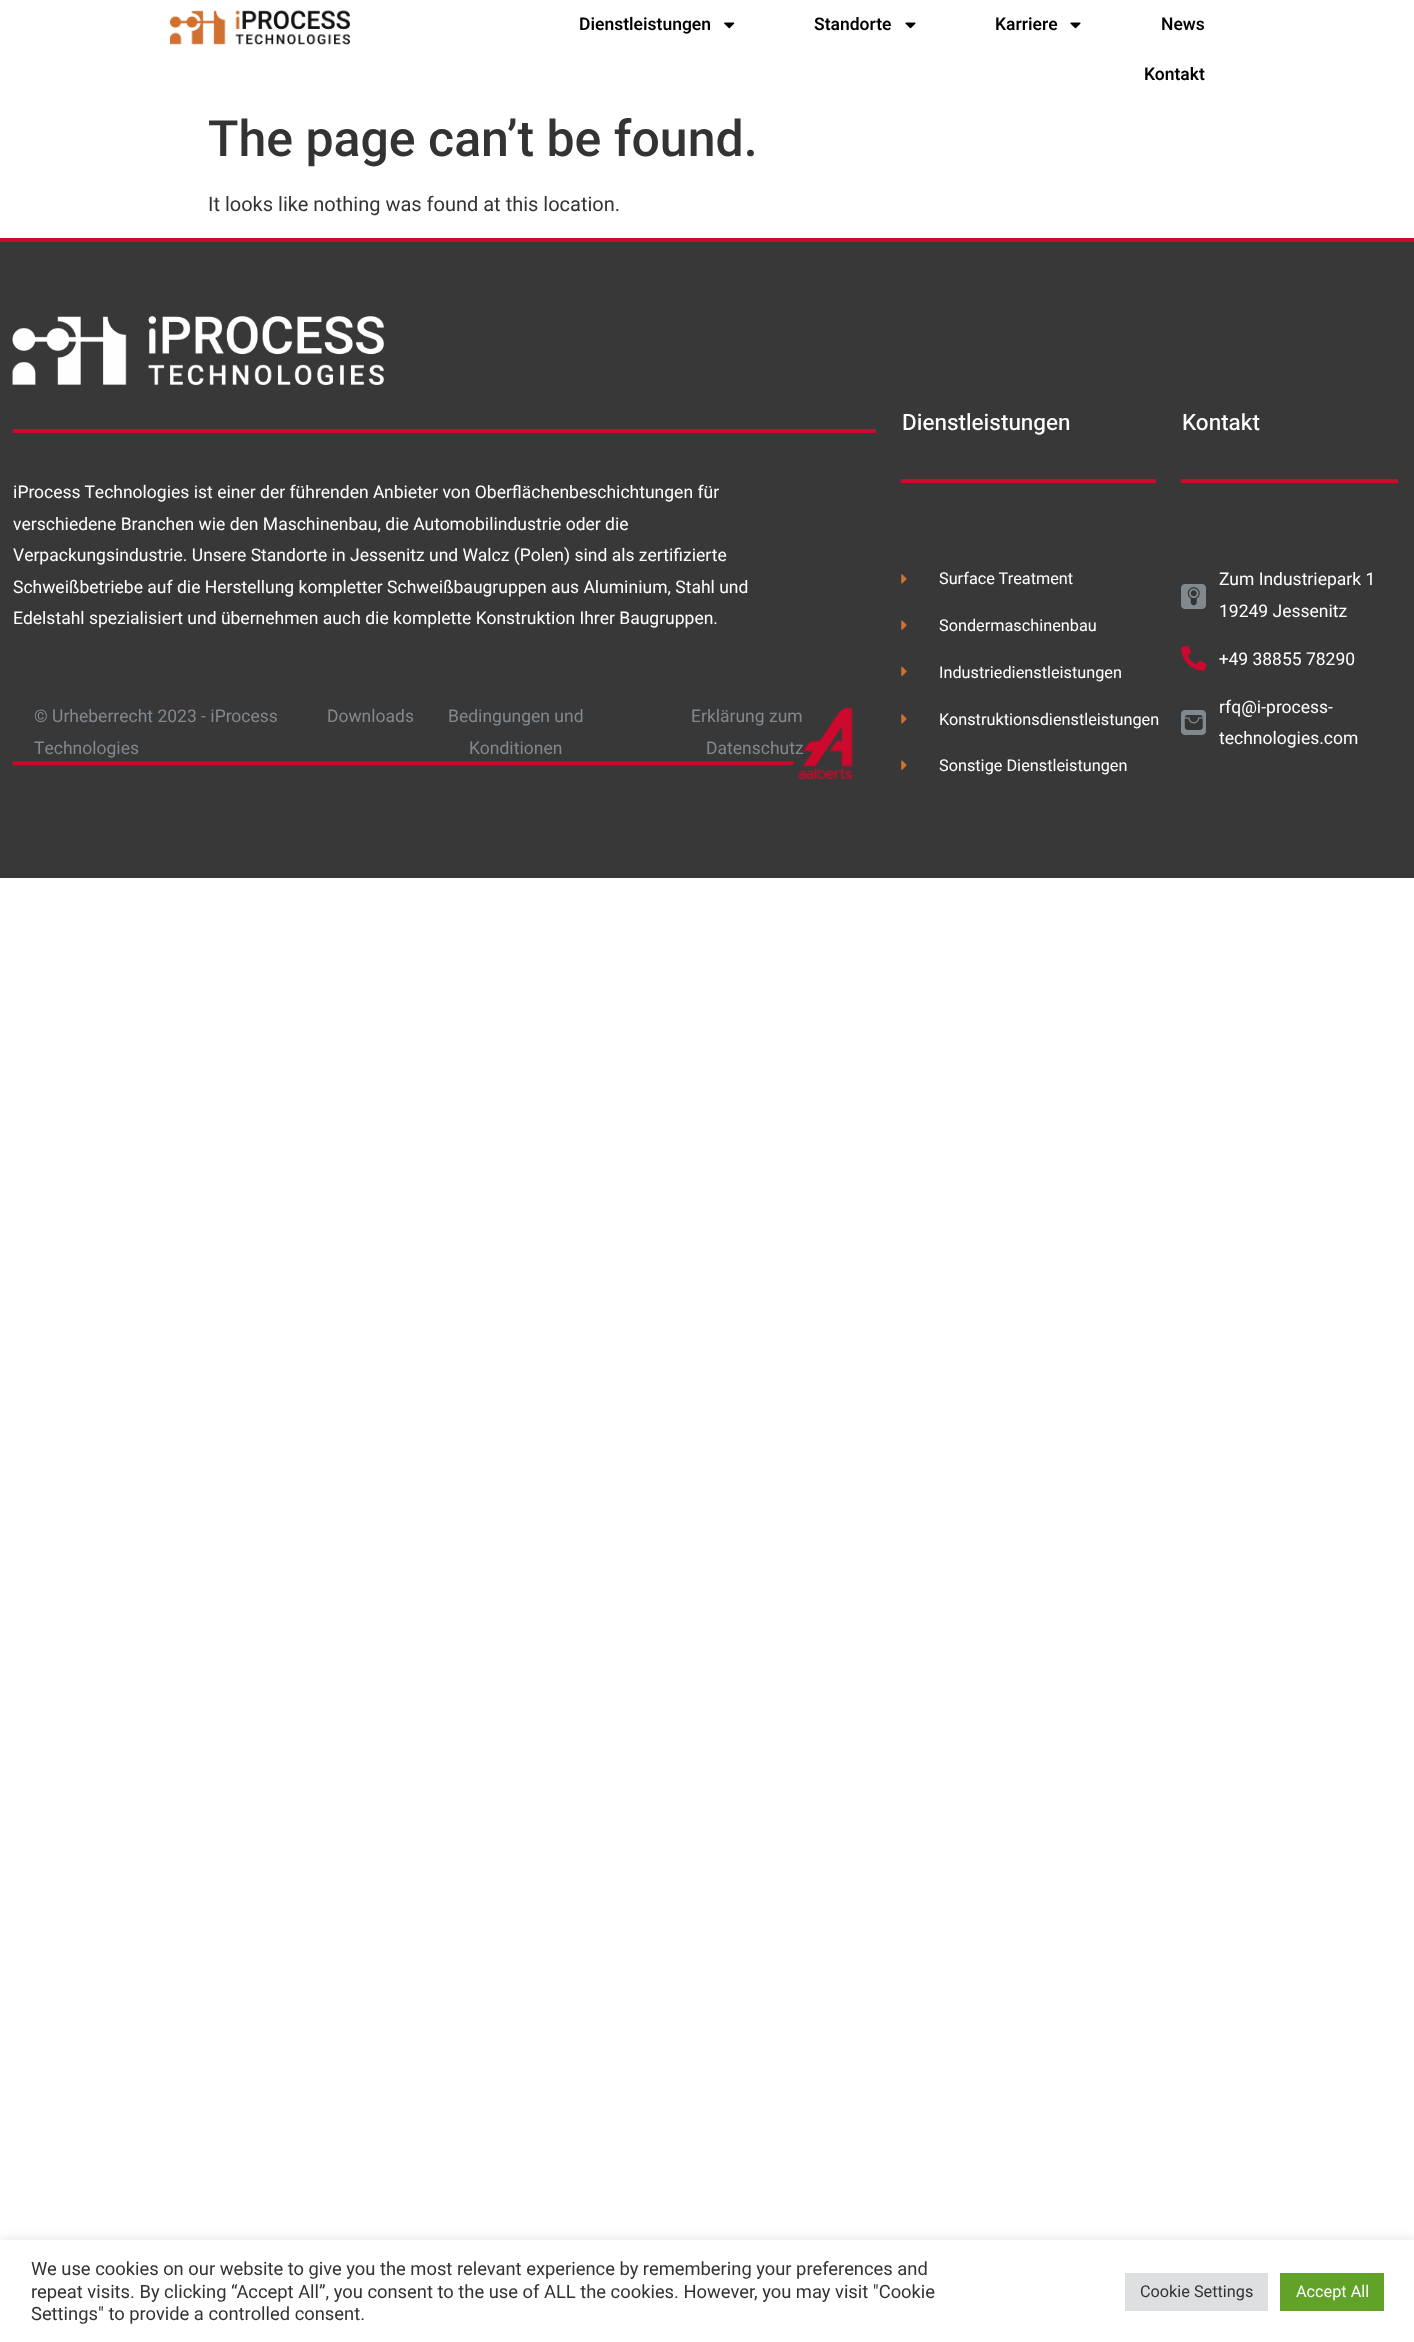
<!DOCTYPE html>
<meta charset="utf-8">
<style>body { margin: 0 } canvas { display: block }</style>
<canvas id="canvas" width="1414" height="2342"></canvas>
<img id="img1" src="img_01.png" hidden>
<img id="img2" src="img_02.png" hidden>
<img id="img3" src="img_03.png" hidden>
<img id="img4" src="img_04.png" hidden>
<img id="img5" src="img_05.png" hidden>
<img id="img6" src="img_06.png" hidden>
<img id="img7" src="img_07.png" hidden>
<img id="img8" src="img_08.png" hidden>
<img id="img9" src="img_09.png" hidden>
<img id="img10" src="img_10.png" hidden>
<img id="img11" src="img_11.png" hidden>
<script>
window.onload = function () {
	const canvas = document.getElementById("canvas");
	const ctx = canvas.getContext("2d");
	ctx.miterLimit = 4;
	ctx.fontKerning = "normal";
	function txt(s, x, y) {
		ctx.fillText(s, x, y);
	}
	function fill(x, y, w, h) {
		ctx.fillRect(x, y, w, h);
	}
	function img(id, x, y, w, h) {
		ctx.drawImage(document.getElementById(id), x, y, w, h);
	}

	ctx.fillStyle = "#FFFFFF";
	fill(0, 0, 1414, 2342);
	img("img1", 170, 10, 180, 35);
	img("img2", 724, 22, 11, 7);
	img("img3", 905, 22, 11, 7);
	img("img3", 1070, 22, 11, 7);
	ctx.fillStyle = "#383838";
	fill(0, 242, 1414, 636);
	ctx.fillStyle = "#CD092D";
	fill(0, 238, 1414, 4);
	img("img4", 12, 316, 372, 69);
	fill(13, 429, 863, 4);
	img("img5", 12, 707, 841, 73);
	fill(901, 479, 255, 4);
	img("img6", 901, 574, 6, 10);
	img("img7", 901, 620, 6, 10);
	img("img8", 901, 666, 6, 11);
	img("img6", 901, 714, 6, 10);
	img("img7", 901, 760, 6, 10);
	fill(1181, 479, 217, 4);
	img("img9", 1181, 584, 25, 25);
	img("img10", 1181, 645, 26, 26);
	img("img11", 1181, 710, 25, 25);
	ctx.save();
	ctx.beginPath();
	ctx.rect(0, 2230, 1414, 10);
	ctx.clip();
	ctx.fillStyle = "rgba(172, 171, 171, 0.3)";
	ctx.filter = "blur(6px)";
	ctx.beginPath();
	ctx.rect(0, 2239, 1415, 102);
	ctx.fill();
	ctx.filter = "none";
	ctx.restore();
	ctx.fillStyle = "#DEDFE0";
	fill(1125, 2273, 143, 38);
	ctx.fillStyle = "#61A229";
	fill(1280, 2273, 104, 38);
	ctx.font = "600 17.5px Heebo";
	ctx.fillStyle = "#000000";
	txt("Dienstleistungen", 579, 30);
	txt("Standorte", 814, 30);
	txt("Karriere", 995, 30);
	txt("News", 1161, 30);
	txt("Kontakt", 1144, 80);
	ctx.font = "500 50px Roboto";
	ctx.fillStyle = "#333333";
	txt("The page can’t be found.", 208, 156);
	ctx.font = "20px Roboto";
	txt("It looks like nothing was found at this location.", 208, 211);
	ctx.font = "17.5px Heebo";
	ctx.fillStyle = "#FFFFFF";
	txt("iProcess Technologies ist einer der führenden Anbieter von Oberflächenbeschichtungen für", 13, 498);
	txt("verschiedene Branchen wie den Maschinenbau, die Automobilindustrie oder die", 13, 530);
	txt("Verpackungsindustrie. Unsere Standorte in Jessenitz und Walcz (Polen) sind als zertifizierte", 13, 561);
	txt("Schweißbetriebe auf die Herstellung kompletter Schweißbaugruppen aus Aluminium, Stahl und", 13, 593);
	txt("Edelstahl spezialisiert und übernehmen auch die komplette Konstruktion Ihrer Baugruppen.", 13, 624);
	ctx.fillStyle = "#82898E";
	txt("© Urheberrecht 2023 - iProcess", 34, 722);
	txt("Technologies", 34, 754);
	txt("Downloads", 327, 722);
	txt("Bedingungen und", 448, 722);
	txt("Konditionen", 469, 754);
	txt("Erklärung zum", 691, 722);
	txt("Datenschutz", 706, 754);
	ctx.font = "500 22.5px Heebo";
	ctx.fillStyle = "#FFFFFF";
	txt("Dienstleistungen", 902, 430);
	ctx.font = "16.25px Heebo";
	txt("Surface Treatment", 939, 584);
	txt("Sondermaschinenbau", 939, 631);
	txt("Industriedienstleistungen", 939, 678);
	txt("Konstruktionsdienstleistungen", 939, 725);
	txt("Sonstige Dienstleistungen", 939, 771);
	ctx.font = "500 22.5px Heebo";
	txt("Kontakt", 1182, 430);
	ctx.font = "17.5px Heebo";
	txt("Zum Industriepark 1", 1219, 585);
	txt("19249 Jessenitz", 1219, 617);
	txt("+49 38855 78290", 1219, 665);
	txt("rfq@i-process-", 1219, 713);
	txt("technologies.com", 1219, 744);
	ctx.font = "18.35px Roboto";
	ctx.fillStyle = "#333333";
	txt("We use cookies on our website to give you the most relevant experience by remembering your preferences and", 31, 2275);
	txt("repeat visits. By clicking “Accept All”, you consent to the use of ALL the cookies. However, you may visit \"Cookie", 31, 2298);
	txt("Settings\" to provide a controlled consent.", 31, 2320);
	ctx.font = "16.25px Roboto";
	txt("Cookie Settings", 1140, 2297);
	ctx.fillStyle = "#FFFFFF";
	txt("Accept All", 1296, 2297);
};
</script>
